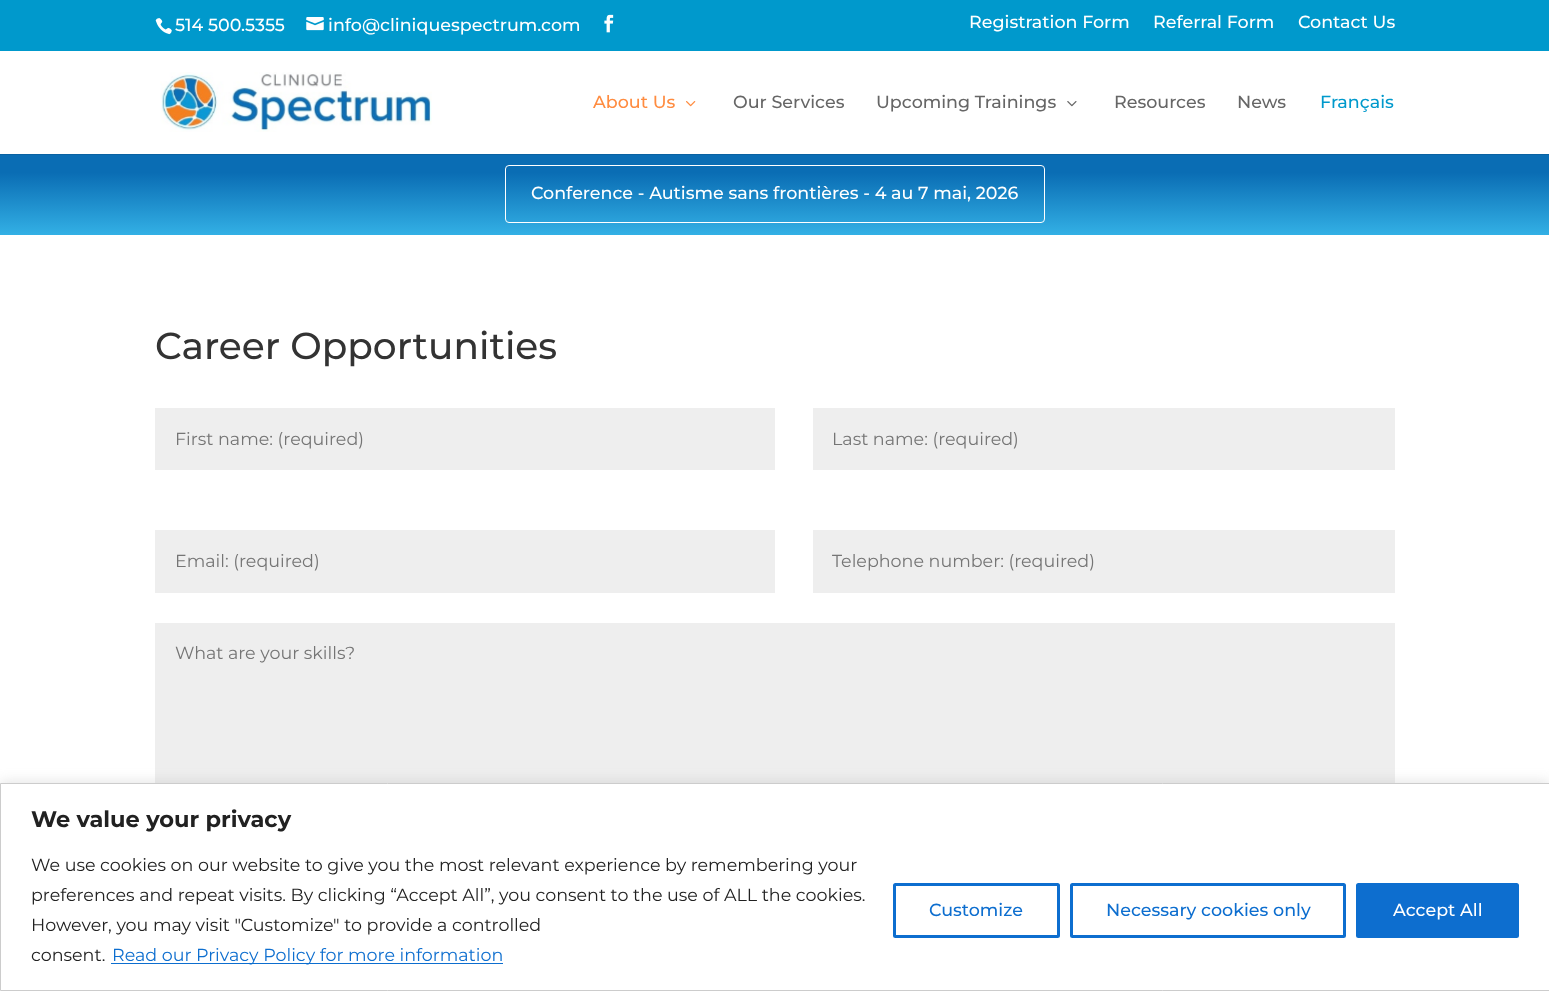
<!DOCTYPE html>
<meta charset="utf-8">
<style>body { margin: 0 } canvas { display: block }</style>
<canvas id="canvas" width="1549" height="991"></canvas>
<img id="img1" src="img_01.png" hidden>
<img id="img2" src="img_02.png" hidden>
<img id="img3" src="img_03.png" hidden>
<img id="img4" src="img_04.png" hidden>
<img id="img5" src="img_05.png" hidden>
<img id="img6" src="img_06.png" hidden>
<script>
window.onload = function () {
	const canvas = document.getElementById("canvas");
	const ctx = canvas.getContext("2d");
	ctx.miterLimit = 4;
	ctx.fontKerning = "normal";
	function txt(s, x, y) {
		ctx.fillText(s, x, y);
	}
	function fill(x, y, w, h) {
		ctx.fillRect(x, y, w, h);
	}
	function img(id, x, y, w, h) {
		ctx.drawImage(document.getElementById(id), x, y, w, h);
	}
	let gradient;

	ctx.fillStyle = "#FFFFFF";
	fill(0, 0, 1549, 991);
	ctx.fillStyle = "#0099CC";
	fill(0, 0, 1549, 51);
	img("img1", 155, 18, 17, 17);
	img("img2", 306, 17, 18, 14);
	img("img3", 604, 14, 10, 19);
	ctx.fillStyle = "#0962A2";
	fill(0, 154, 1549, 1);
	img("img4", 160, 72, 272, 60);
	img("img5", 686, 101, 10, 6);
	img("img6", 1067, 101, 10, 6);
	gradient = ctx.createLinearGradient(775, 152, 775, 235);
	gradient.addColorStop(0.25, "#0A6DB4");
	gradient.addColorStop(1, "#33B0E5");
	ctx.fillStyle = gradient;
	fill(0, 155, 1549, 80);
	ctx.beginPath();
	ctx.roundRect(505.5, 165.5, 539, 57, 3.5);
	ctx.strokeStyle = "#FFFFFF";
	ctx.stroke();
	ctx.fillStyle = "#EEEEEE";
	fill(155, 408, 620, 62);
	fill(813, 408, 582, 62);
	fill(155, 530, 620, 63);
	fill(813, 530, 582, 63);
	fill(155, 623, 1240, 160);
	ctx.fillStyle = "rgba(172, 171, 171, 0.3)";
	ctx.filter = "blur(6px)";
	ctx.beginPath();
	ctx.rect(0, 781, 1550, 209);
	ctx.fill();
	ctx.filter = "none";
	ctx.fillStyle = "#FFFFFF";
	ctx.beginPath();
	ctx.rect(0.5, 783.5, 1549, 207);
	ctx.fill();
	ctx.strokeStyle = "#CCCCCC";
	ctx.stroke();
	ctx.fillStyle = "#0D6ECF";
	fill(111, 963, 392, 1);
	ctx.beginPath();
	ctx.roundRect(894.5, 884.5, 164, 52, 1);
	ctx.strokeStyle = "#0D6ECF";
	ctx.lineWidth = 3;
	ctx.stroke();
	ctx.beginPath();
	ctx.roundRect(1071.5, 884.5, 273, 52, 1);
	ctx.stroke();
	ctx.beginPath();
	ctx.roundRect(1357.5, 884.5, 160, 52, 1);
	ctx.fill();
	ctx.stroke();
	ctx.font = "500 17.5px Montserrat";
	ctx.fillStyle = "#FFFFFF";
	txt("514 500.5355", 175, 31);
	txt("info@cliniquespectrum.com", 328, 31);
	txt("Registration Form", 969, 28);
	txt("Referral Form", 1153, 28);
	txt("Contact Us", 1298, 28);
	ctx.fillStyle = "#FF8C40";
	txt("About Us", 593, 108);
	ctx.fillStyle = "#666666";
	txt("Our Services", 733, 108);
	txt("Upcoming Trainings", 876, 108);
	txt("Resources", 1114, 108);
	txt("News", 1237, 108);
	ctx.fillStyle = "#0099CC";
	txt("Français", 1320, 108);
	ctx.fillStyle = "#FFFFFF";
	txt("Conference - Autisme sans frontières - 4 au 7 mai, 2026", 531, 199);
	ctx.font = "500 37.5px Montserrat";
	ctx.fillStyle = "#333333";
	txt("Career Opportunities", 155, 359);
	ctx.font = "17.5px Montserrat";
	ctx.fillStyle = "#757575";
	txt("First name: (required)", 175, 445);
	txt("Last name: (required)", 832, 445);
	txt("Email: (required)", 175, 567);
	txt("Telephone number: (required)", 832, 567);
	txt("What are your skills?", 175, 659);
	ctx.font = "bold 22.5px Montserrat";
	ctx.fillStyle = "#212121";
	txt("We value your privacy", 31, 827);
	ctx.font = "17.5px Montserrat";
	txt("We use cookies on our website to give you the most relevant experience by remembering your", 31, 871);
	txt("preferences and repeat visits. By clicking “Accept All”, you consent to the use of ALL the cookies.", 31, 901);
	txt("However, you may visit \"Customize\" to provide a controlled", 31, 931);
	txt("consent.", 31, 961);
	ctx.fillStyle = "#0D6ECF";
	txt("Read our Privacy Policy for more information", 112, 961);
	ctx.font = "500 17.5px Montserrat";
	txt("Customize", 929, 916);
	txt("Necessary cookies only", 1106, 916);
	ctx.fillStyle = "#FFFFFF";
	txt("Accept All", 1393, 916);
};
</script>
